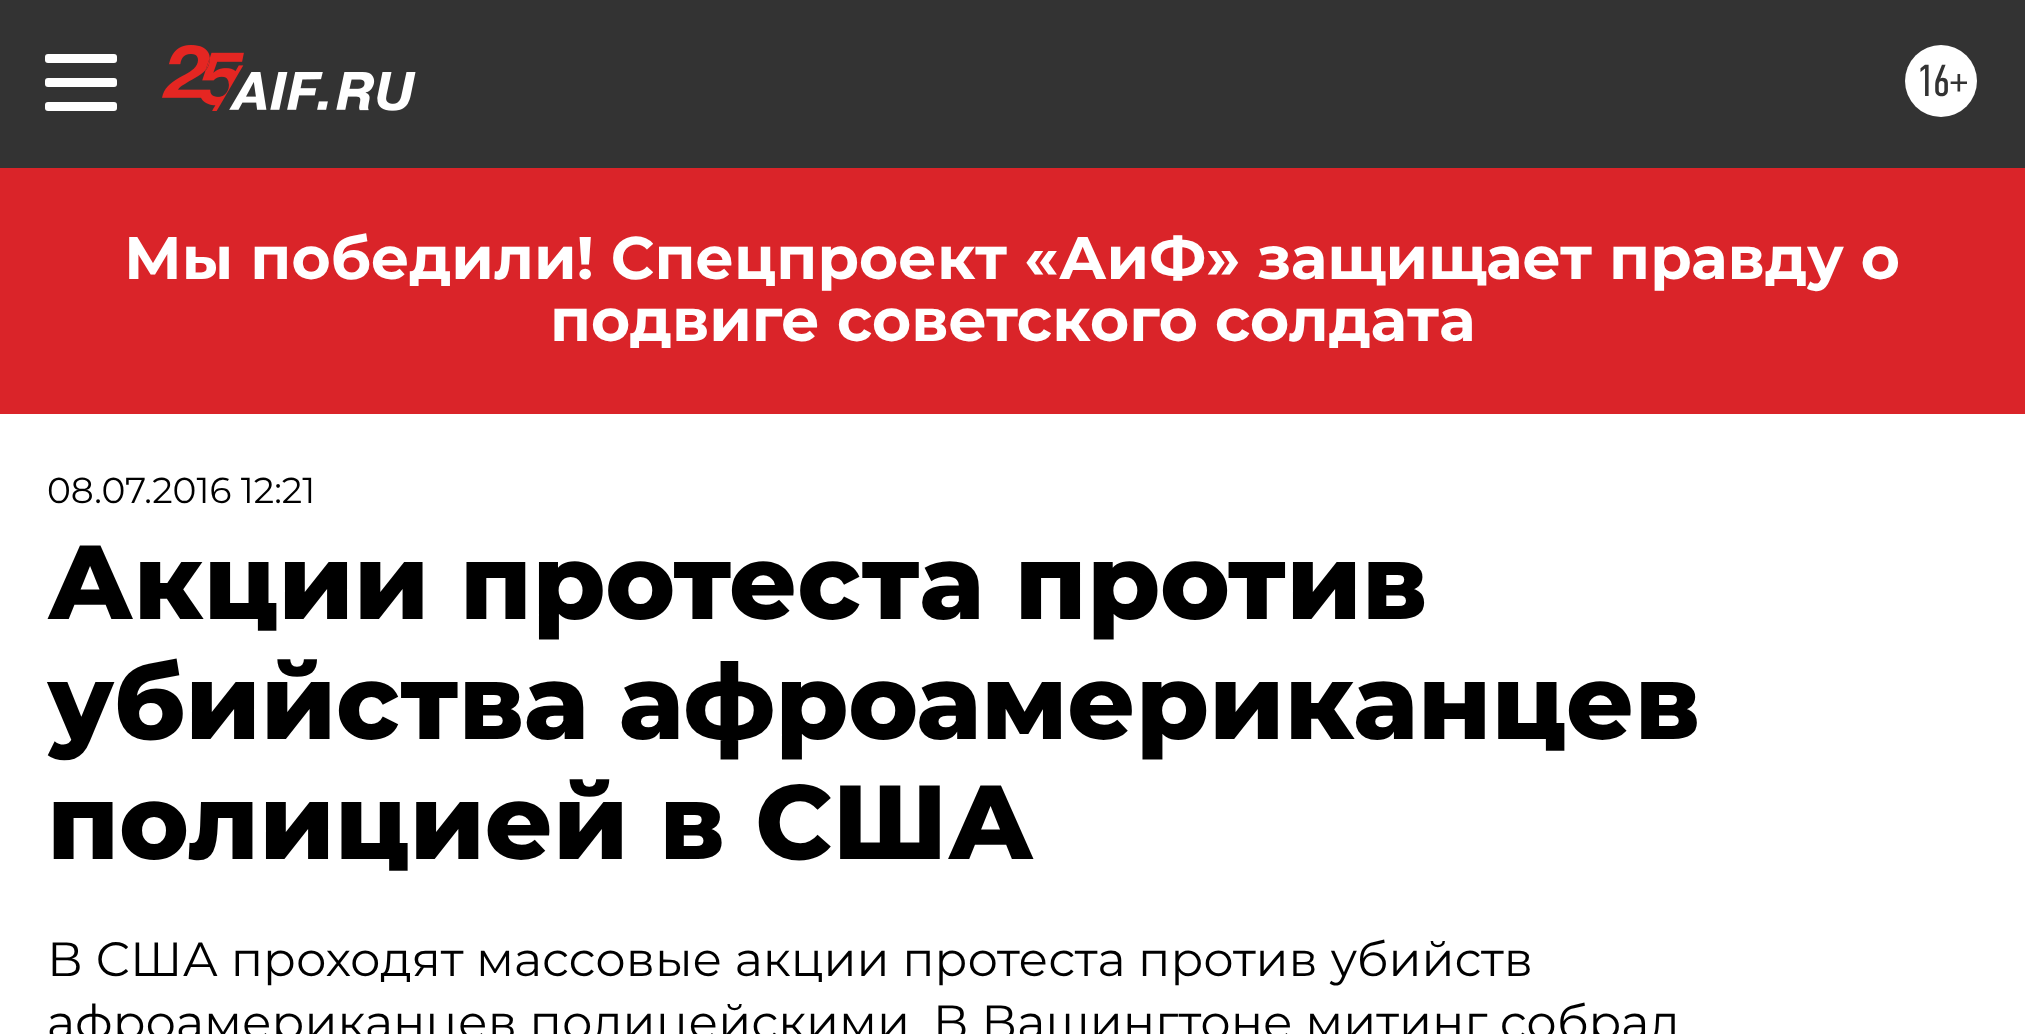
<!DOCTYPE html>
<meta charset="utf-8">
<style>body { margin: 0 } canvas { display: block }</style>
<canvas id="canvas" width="2025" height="1034"></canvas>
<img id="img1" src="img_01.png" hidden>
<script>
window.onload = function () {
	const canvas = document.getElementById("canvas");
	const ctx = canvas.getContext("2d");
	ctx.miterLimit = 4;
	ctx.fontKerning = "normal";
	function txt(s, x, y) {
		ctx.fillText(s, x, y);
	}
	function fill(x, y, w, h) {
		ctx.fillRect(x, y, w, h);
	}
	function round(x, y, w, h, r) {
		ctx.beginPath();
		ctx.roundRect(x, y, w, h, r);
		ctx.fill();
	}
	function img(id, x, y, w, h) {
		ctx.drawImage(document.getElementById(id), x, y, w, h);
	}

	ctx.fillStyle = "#FFFFFF";
	fill(0, 0, 2025, 1034);
	ctx.fillStyle = "#333333";
	fill(0, 0, 2025, 168);
	ctx.fillStyle = "#FFFFFF";
	round(45, 54, 72, 9, 3);
	round(45, 78, 72, 9, 3);
	round(45, 102, 72, 9, 3);
	img("img1", 162, 45, 254, 66);
	ctx.beginPath();
	ctx.arc(1941, 81, 36, 0, Math.PI * 2);
	ctx.fill();
	ctx.fillStyle = "#DA2429";
	fill(0, 168, 2025, 246);
	ctx.font = "45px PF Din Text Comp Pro";
	ctx.fillStyle = "#333333";
	txt("16+", 1916, 96);
	ctx.font = "bold 60px Montserrat";
	ctx.fillStyle = "#FFFFFF";
	txt("Мы победили! Спецпроект «АиФ» защищает правду о", 124, 279);
	txt("подвиге советского солдата", 550, 341);
	ctx.font = "36px Montserrat";
	ctx.fillStyle = "#000000";
	txt("08.07.2016 12:21", 47, 503);
	ctx.font = "800 105px Montserrat";
	txt("Акции протеста против", 47, 619);
	txt("убийства афроамериканцев", 47, 739);
	txt("полицией в США", 47, 859);
	ctx.font = "48px Montserrat";
	txt("В США проходят массовые акции протеста против убийств", 47, 976);
	txt("афроамериканцев полицейскими. В Вашингтоне митинг собрал", 47, 1039);
};
</script>
